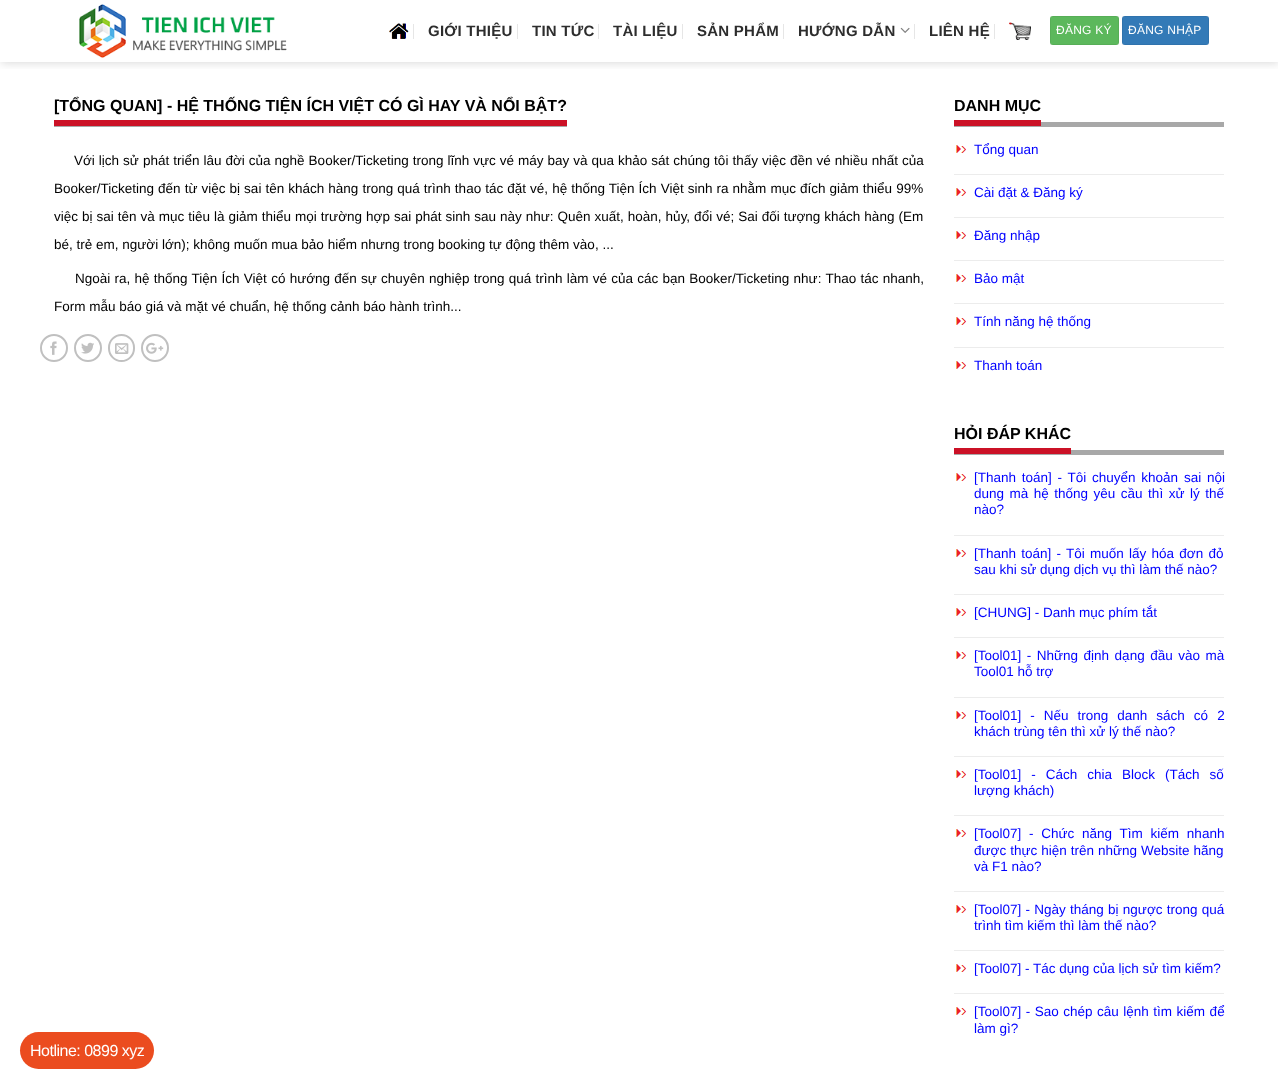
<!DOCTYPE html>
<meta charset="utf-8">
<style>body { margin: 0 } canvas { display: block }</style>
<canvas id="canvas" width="1278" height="1085"></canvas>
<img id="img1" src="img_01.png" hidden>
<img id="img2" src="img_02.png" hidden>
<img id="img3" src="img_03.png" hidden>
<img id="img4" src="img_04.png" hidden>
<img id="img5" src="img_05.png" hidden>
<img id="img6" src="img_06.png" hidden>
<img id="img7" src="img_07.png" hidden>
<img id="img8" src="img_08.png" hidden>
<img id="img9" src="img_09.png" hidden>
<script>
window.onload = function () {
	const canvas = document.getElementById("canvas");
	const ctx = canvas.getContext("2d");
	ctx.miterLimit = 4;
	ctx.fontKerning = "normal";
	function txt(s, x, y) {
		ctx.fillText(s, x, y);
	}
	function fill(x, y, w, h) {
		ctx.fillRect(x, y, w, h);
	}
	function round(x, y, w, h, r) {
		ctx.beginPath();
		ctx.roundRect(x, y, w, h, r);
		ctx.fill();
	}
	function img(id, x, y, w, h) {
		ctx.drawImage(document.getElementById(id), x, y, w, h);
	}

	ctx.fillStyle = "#FFFFFF";
	fill(0, 0, 1278, 1085);
	ctx.save();
	ctx.beginPath();
	ctx.rect(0, 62, 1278, 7);
	ctx.clip();
	ctx.fillStyle = "rgba(0, 0, 0, 0.15)";
	ctx.filter = "blur(5px)";
	ctx.beginPath();
	ctx.rect(1, 1, 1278, 62);
	ctx.fill();
	ctx.filter = "none";
	ctx.restore();
	img("img1", 79, 4, 208, 54);
	img("img2", 389, 23, 20, 16);
	ctx.fillStyle = "#E6E6E6";
	fill(413, 24, 1, 15);
	fill(517, 24, 1, 15);
	fill(598, 24, 1, 15);
	fill(682, 24, 1, 15);
	fill(783, 24, 1, 15);
	img("img3", 900, 27, 10, 6);
	fill(914, 24, 1, 15);
	fill(994, 24, 1, 15);
	img("img4", 1009, 22, 22, 18);
	ctx.fillStyle = "#5CB85C";
	round(1050, 16, 69, 29, 3);
	ctx.strokeStyle = "rgba(0, 0, 0, 0.05)";
	ctx.strokeRect(1050.5, 16.5, 68, 28);
	ctx.fillStyle = "#337AB7";
	round(1122, 16, 87, 29, 3);
	ctx.strokeRect(1122.5, 16.5, 86, 28);
	ctx.fillStyle = "#A8A8A8";
	fill(54, 126, 513, 1);
	ctx.fillStyle = "#CB1126";
	fill(54, 120, 513, 6);
	ctx.beginPath();
	ctx.arc(54, 348, 13, 0, Math.PI * 2);
	ctx.strokeStyle = "#C0C0C0";
	ctx.lineWidth = 2;
	ctx.stroke();
	img("img5", 50, 341, 7, 14);
	ctx.beginPath();
	ctx.arc(88, 348, 13, 0, Math.PI * 2);
	ctx.stroke();
	img("img6", 81, 342, 13, 12);
	ctx.beginPath();
	ctx.roundRect(109, 335, 25, 26, 12.5);
	ctx.stroke();
	img("img7", 115, 343, 14, 11);
	ctx.beginPath();
	ctx.arc(155, 348, 13, 0, Math.PI * 2);
	ctx.stroke();
	img("img8", 146, 342, 18, 12);
	ctx.fillStyle = "#A8A8A8";
	fill(954, 122, 270, 5);
	ctx.fillStyle = "#CB1126";
	fill(954, 120, 87, 6);
	img("img9", 956, 145, 10, 8);
	ctx.fillStyle = "#ECECEC";
	fill(954, 174, 270, 1);
	img("img9", 956, 188, 10, 8);
	fill(954, 217, 270, 1);
	img("img9", 956, 231, 10, 8);
	fill(954, 260, 270, 1);
	img("img9", 956, 274, 10, 8);
	fill(954, 303, 270, 1);
	img("img9", 956, 317, 10, 8);
	fill(954, 347, 270, 1);
	img("img9", 956, 361, 10, 8);
	ctx.fillStyle = "#A8A8A8";
	fill(954, 450, 270, 5);
	ctx.fillStyle = "#CB1126";
	fill(954, 448, 117, 6);
	img("img9", 956, 473, 10, 8);
	ctx.fillStyle = "#ECECEC";
	fill(954, 535, 270, 1);
	img("img9", 956, 549, 10, 8);
	fill(954, 594, 270, 1);
	img("img9", 956, 608, 10, 8);
	fill(954, 637, 270, 1);
	img("img9", 956, 651, 10, 8);
	fill(954, 697, 270, 1);
	img("img9", 956, 711, 10, 8);
	fill(954, 756, 270, 1);
	img("img9", 956, 770, 10, 8);
	fill(954, 815, 270, 1);
	img("img9", 956, 829, 10, 8);
	fill(954, 891, 270, 1);
	img("img9", 956, 905, 10, 8);
	fill(954, 950, 270, 1);
	img("img9", 956, 964, 10, 8);
	fill(954, 993, 270, 1);
	img("img9", 956, 1007, 10, 8);
	ctx.fillStyle = "#EB4C1F";
	round(20, 1032, 134, 37, 18.5);
	ctx.letterSpacing = "0.25px";
	ctx.font = "bold 15px Liberation Sans";
	ctx.fillStyle = "#2D2D2D";
	txt("GIỚI THIỆU", 428, 36);
	txt("TIN TỨC", 532, 36);
	txt("TÀI LIỆU", 613, 36);
	txt("SẢN PHẨM", 697, 36);
	txt("HƯỚNG DẪN", 798, 36);
	txt("LIÊN HỆ", 929, 36);
	ctx.font = "12px Liberation Sans";
	ctx.fillStyle = "#FFFFFF";
	txt("ĐĂNG KÝ", 1056, 34);
	txt("ĐĂNG NHẬP", 1128, 34);
	ctx.letterSpacing = "0px";
	ctx.font = "bold 16px Liberation Sans";
	ctx.fillStyle = "#000000";
	txt("[TỔNG QUAN] - HỆ THỐNG TIỆN ÍCH VIỆT CÓ GÌ HAY VÀ NỔI BẬT?", 54, 111);
	ctx.wordSpacing = "0.25px";
	ctx.font = "13.5px Liberation Sans";
	txt("Với lịch sử phát triển lâu đời của nghề Booker/Ticketing trong lĩnh vực vé máy bay và qua khảo sát chúng tôi thấy việc đền vé nhiều nhất của", 74, 165);
	ctx.wordSpacing = "0.3px";
	txt("Booker/Ticketing đến từ việc bị sai tên khách hàng trong quá trình thao tác đặt vé, hệ thống Tiện Ích Việt sinh ra nhằm mục đích giảm thiểu 99%", 54, 193);
	ctx.wordSpacing = "0.25px";
	txt("việc bị sai tên và mục tiêu là giảm thiểu mọi trường hợp sai phát sinh sau này như: Quên xuất, hoàn, hủy, đổi vé; Sai đối tượng khách hàng (Em", 54, 221);
	ctx.wordSpacing = "0px";
	txt("bé, trẻ em, người lớn); không muốn mua bảo hiểm nhưng trong booking tự động thêm vào, ...", 54, 249);
	ctx.wordSpacing = "0.5px";
	txt("Ngoài ra, hệ thống Tiện Ích Việt có hướng đến sự chuyên nghiệp trong quá trình làm vé của các bạn Booker/Ticketing như: Thao tác nhanh,", 75, 283);
	ctx.wordSpacing = "0px";
	txt("Form mẫu báo giá và mặt vé chuẩn, hệ thống cảnh báo hành trình...", 54, 311);
	ctx.font = "bold 16px Liberation Sans";
	txt("DANH MỤC", 954, 111);
	ctx.font = "13.5px Liberation Sans";
	ctx.fillStyle = "#0000FF";
	txt("Tổng quan", 974, 154);
	txt("Cài đặt & Đăng ký", 974, 197);
	txt("Đăng nhập", 974, 240);
	txt("Bảo mật", 974, 283);
	txt("Tính năng hệ thống", 974, 326);
	txt("Thanh toán", 974, 370);
	ctx.font = "bold 16px Liberation Sans";
	ctx.fillStyle = "#000000";
	txt("HỎI ĐÁP KHÁC", 954, 439);
	ctx.wordSpacing = "2px";
	ctx.font = "13.5px Liberation Sans";
	ctx.fillStyle = "#0000FF";
	txt("[Thanh toán] - Tôi chuyển khoản sai nội", 974, 482);
	ctx.wordSpacing = "1.75px";
	txt("dung mà hệ thống yêu cầu thì xử lý thế", 974, 498);
	ctx.wordSpacing = "0px";
	txt("nào?", 974, 514);
	ctx.wordSpacing = "1.5px";
	txt("[Thanh toán] - Tôi muốn lấy hóa đơn đỏ", 974, 558);
	ctx.wordSpacing = "0px";
	txt("sau khi sử dụng dịch vụ thì làm thế nào?", 974, 574);
	txt("[CHUNG] - Danh mục phím tắt", 974, 617);
	ctx.wordSpacing = "1.75px";
	txt("[Tool01] - Những định dạng đầu vào mà", 974, 660);
	ctx.wordSpacing = "0px";
	txt("Tool01 hỗ trợ", 974, 676);
	ctx.wordSpacing = "5.25px";
	txt("[Tool01] - Nếu trong danh sách có 2", 974, 720);
	ctx.wordSpacing = "0px";
	txt("khách trùng tên thì xử lý thế nào?", 974, 736);
	ctx.wordSpacing = "6.25px";
	txt("[Tool01] - Cách chia Block (Tách số", 974, 779);
	ctx.wordSpacing = "0px";
	txt("lượng khách)", 974, 795);
	ctx.wordSpacing = "4px";
	txt("[Tool07] - Chức năng Tìm kiếm nhanh", 974, 838);
	ctx.wordSpacing = "0.25px";
	txt("được thực hiện trên những Website hãng", 974, 855);
	ctx.wordSpacing = "0px";
	txt("và F1 nào?", 974, 871);
	ctx.wordSpacing = "0.5px";
	txt("[Tool07] - Ngày tháng bị ngược trong quá", 974, 914);
	ctx.wordSpacing = "0px";
	txt("trình tìm kiếm thì làm thế nào?", 974, 930);
	txt("[Tool07] - Tác dụng của lịch sử tìm kiếm?", 974, 973);
	ctx.wordSpacing = "0.75px";
	txt("[Tool07] - Sao chép câu lệnh tìm kiếm để", 974, 1016);
	ctx.wordSpacing = "0px";
	txt("làm gì?", 974, 1033);
	ctx.letterSpacing = "-0.5px";
	ctx.font = "16px Liberation Sans";
	ctx.fillStyle = "#FFFFFF";
	txt("Hotline: 0899 xyz", 30, 1056);
};
</script>
